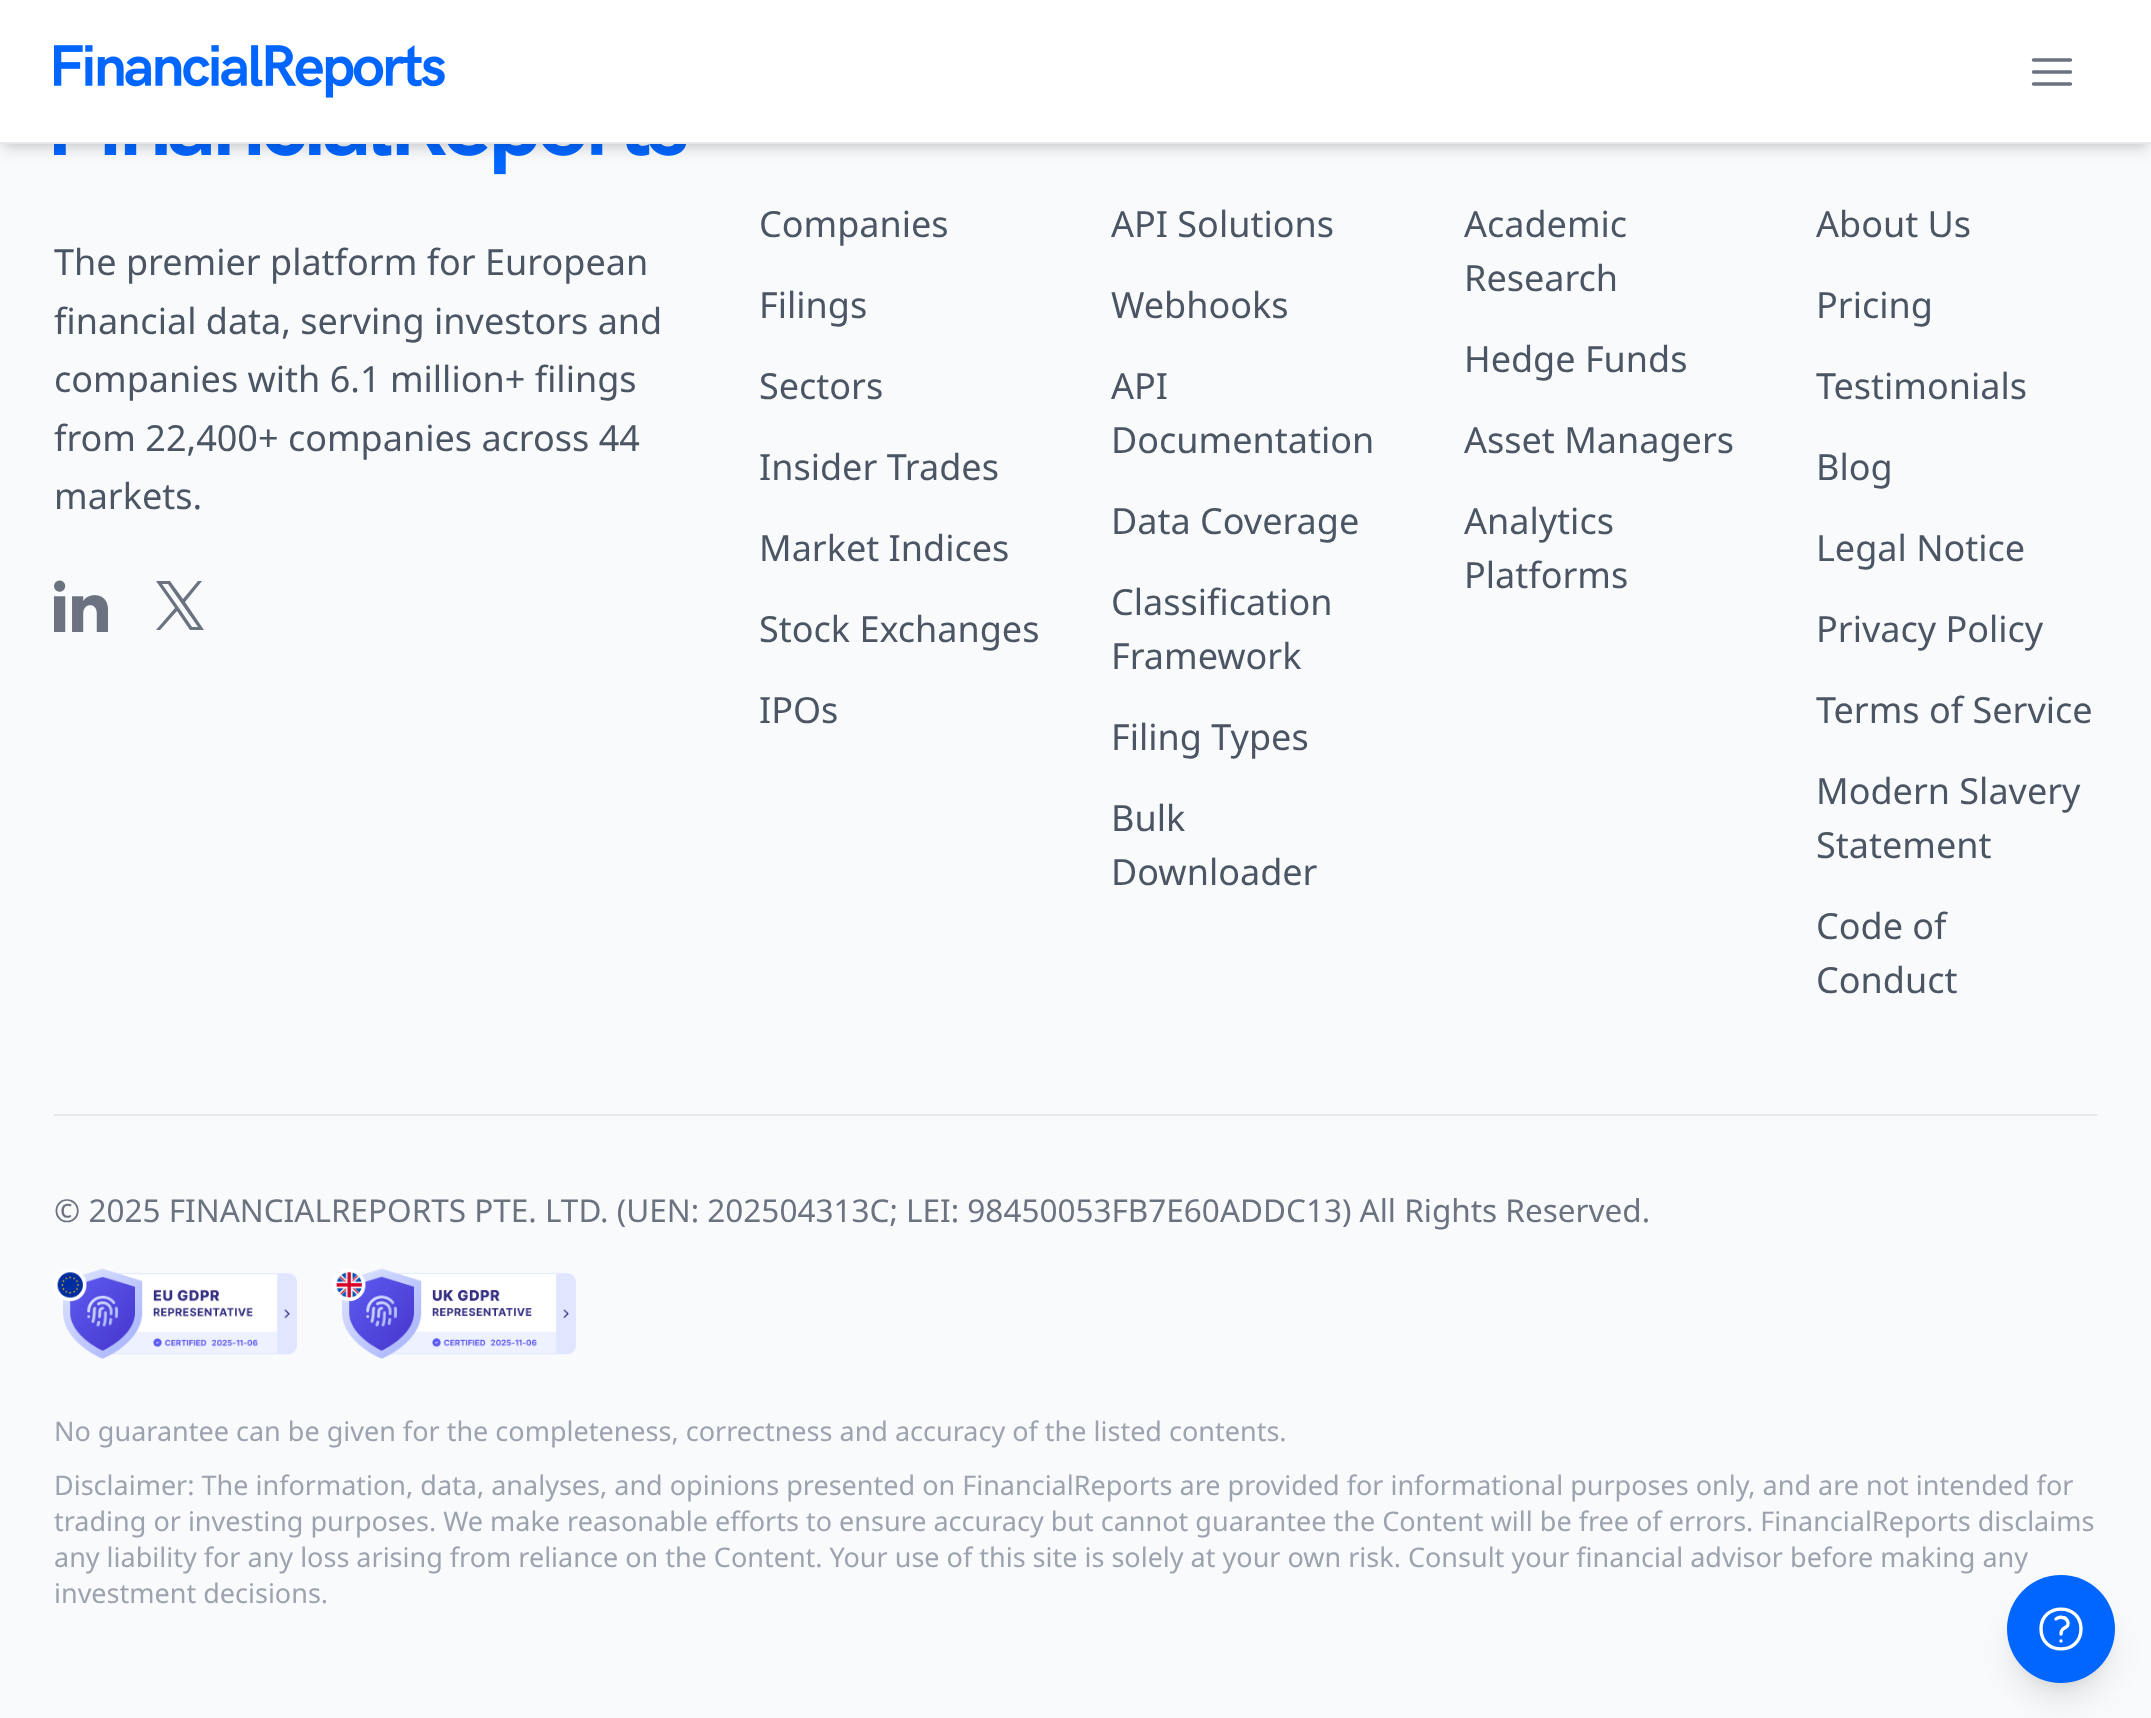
<!DOCTYPE html>
<meta charset="utf-8">
<style>body { margin: 0 } canvas { display: block }</style>
<canvas id="canvas" width="2151" height="1718"></canvas>
<img id="img1" src="img_02.png" hidden>
<img id="img2" src="img_01.png" hidden>
<img id="img3" src="img_03.png" hidden>
<img id="img4" src="img_04.png" hidden>
<img id="img5" src="img_05.png" hidden>
<script>
window.onload = function () {
	const canvas = document.getElementById("canvas");
	const ctx = canvas.getContext("2d");
	ctx.miterLimit = 4;
	ctx.fontKerning = "normal";
	function txt(s, x, y) {
		ctx.fillText(s, x, y);
	}
	function fill(x, y, w, h) {
		ctx.fillRect(x, y, w, h);
	}
	function img(id, x, y, w, h) {
		ctx.drawImage(document.getElementById(id), x, y, w, h);
	}

	ctx.fillStyle = "#F9FAFB";
	fill(0, 0, 2151, 1718);
	img("img1", 54, 144, 632, 31);
	ctx.fillStyle = "rgba(0, 0, 0, 0.1)";
	ctx.filter = "blur(4.5px)";
	ctx.beginPath();
	ctx.rect(5, 9, 2142, 135);
	ctx.fill();
	ctx.filter = "none";
	ctx.filter = "blur(7px)";
	ctx.beginPath();
	ctx.rect(2, 11, 2147, 140);
	ctx.fill();
	ctx.filter = "none";
	ctx.fillStyle = "#FFFFFF";
	fill(0, 0, 2151, 142);
	ctx.fillStyle = "#E5E7EB";
	fill(0, 142, 2151, 2);
	img("img2", 54, 45, 391, 53);
	ctx.beginPath();
	ctx.moveTo(2033.5, 60);
	ctx.lineTo(2070.5, 60);
	ctx.moveTo(2033.5, 72);
	ctx.lineTo(2070.5, 72);
	ctx.moveTo(2033.5, 84);
	ctx.lineTo(2070.5, 84);
	ctx.strokeStyle = "#6B7280";
	ctx.lineWidth = 3.4;
	ctx.lineCap = "round";
	ctx.lineJoin = "round";
	ctx.stroke();
	img("img3", 54, 580, 54, 52);
	ctx.fillStyle = "#6B7280";
	ctx.beginPath();
	ctx.moveTo(185, 602);
	ctx.lineTo(202, 581);
	ctx.lineTo(198, 581);
	ctx.lineTo(183, 599);
	ctx.lineTo(170, 581);
	ctx.lineTo(156, 581);
	ctx.lineTo(175, 608);
	ctx.lineTo(156, 630);
	ctx.lineTo(160, 630);
	ctx.lineTo(177, 611);
	ctx.lineTo(190, 630);
	ctx.lineTo(204, 630);
	ctx.closePath();
	ctx.moveTo(179, 608);
	ctx.lineTo(162, 584);
	ctx.lineTo(168, 584);
	ctx.lineTo(198, 627);
	ctx.lineTo(192, 627);
	ctx.closePath();
	ctx.fill();
	ctx.fillStyle = "#E5E7EB";
	fill(54, 1114, 2043, 2);
	img("img4", 54, 1268, 243, 91);
	img("img5", 333, 1268, 243, 91);
	ctx.fillStyle = "rgba(0, 0, 0, 0.1)";
	ctx.filter = "blur(7px)";
	ctx.beginPath();
	ctx.roundRect(2016, 1593, 90, 90, 45);
	ctx.fill();
	ctx.filter = "none";
	ctx.filter = "blur(17px)";
	ctx.beginPath();
	ctx.roundRect(2014, 1604, 94, 95, 47);
	ctx.fill();
	ctx.filter = "none";
	ctx.fillStyle = "#0066FF";
	ctx.beginPath();
	ctx.arc(2061, 1629, 54, 0, Math.PI * 2);
	ctx.fill();
	ctx.beginPath();
	ctx.moveTo(2056, 1619);
	ctx.bezierCurveTo(2058, 1617.5, 2060, 1617, 2062.5, 1617.5);
	ctx.bezierCurveTo(2064.5, 1617.5, 2066.5, 1619, 2067.5, 1621);
	ctx.bezierCurveTo(2070.5, 1627.5, 2063, 1627, 2061.5, 1631);
	ctx.lineTo(2061, 1634);
	ctx.moveTo(2081, 1629);
	ctx.bezierCurveTo(2081, 1655.5, 2041, 1655.5, 2041, 1629);
	ctx.bezierCurveTo(2041, 1602.5, 2081, 1602.5, 2081, 1629);
	ctx.closePath();
	ctx.moveTo(2061, 1641);
	ctx.lineTo(2061, 1641);
	ctx.closePath();
	ctx.strokeStyle = "#FFFFFF";
	ctx.stroke();
	ctx.font = "36px Noto Sans";
	ctx.fillStyle = "#4B5563";
	txt("The premier platform for European", 54, 275);
	txt("financial data, serving investors and", 54, 334);
	txt("companies with 6.1 million+ filings", 54, 392);
	txt("from 22,400+ companies across 44", 54, 451);
	txt("markets.", 54, 509);
	txt("Companies", 759, 237);
	txt("Filings", 759, 318);
	txt("Sectors", 759, 399);
	txt("Insider Trades", 759, 480);
	txt("Market Indices", 759, 561);
	txt("Stock Exchanges", 759, 642);
	txt("IPOs", 759, 723);
	txt("API Solutions", 1111, 237);
	txt("Webhooks", 1111, 318);
	txt("API", 1111, 399);
	txt("Documentation", 1111, 453);
	txt("Data Coverage", 1111, 534);
	txt("Classification", 1111, 615);
	txt("Framework", 1111, 669);
	txt("Filing Types", 1111, 750);
	txt("Bulk", 1111, 831);
	txt("Downloader", 1111, 885);
	txt("Academic", 1464, 237);
	txt("Research", 1464, 291);
	txt("Hedge Funds", 1464, 372);
	txt("Asset Managers", 1464, 453);
	txt("Analytics", 1464, 534);
	txt("Platforms", 1464, 588);
	txt("About Us", 1816, 237);
	txt("Pricing", 1816, 318);
	txt("Testimonials", 1816, 399);
	txt("Blog", 1816, 480);
	txt("Legal Notice", 1816, 561);
	txt("Privacy Policy", 1816, 642);
	txt("Terms of Service", 1816, 723);
	txt("Modern Slavery", 1816, 804);
	txt("Statement", 1816, 858);
	txt("Code of", 1816, 939);
	txt("Conduct", 1816, 993);
	ctx.font = "31.5px Noto Sans";
	ctx.fillStyle = "#6B7280";
	txt("© 2025 FINANCIALREPORTS PTE. LTD. (UEN: 202504313C; LEI: 98450053FB7E60ADDC13) All Rights Reserved.", 54, 1222);
	ctx.font = "27px Noto Sans";
	ctx.fillStyle = "#9CA3AF";
	txt("No guarantee can be given for the completeness, correctness and accuracy of the listed contents.", 54, 1441);
	txt("Disclaimer: The information, data, analyses, and opinions presented on FinancialReports are provided for informational purposes only, and are not intended for", 54, 1495);
	txt("trading or investing purposes. We make reasonable efforts to ensure accuracy but cannot guarantee the Content will be free of errors. FinancialReports disclaims", 54, 1531);
	txt("any liability for any loss arising from reliance on the Content. Your use of this site is solely at your own risk. Consult your financial advisor before making any", 54, 1567);
	txt("investment decisions.", 54, 1603);
};
</script>
